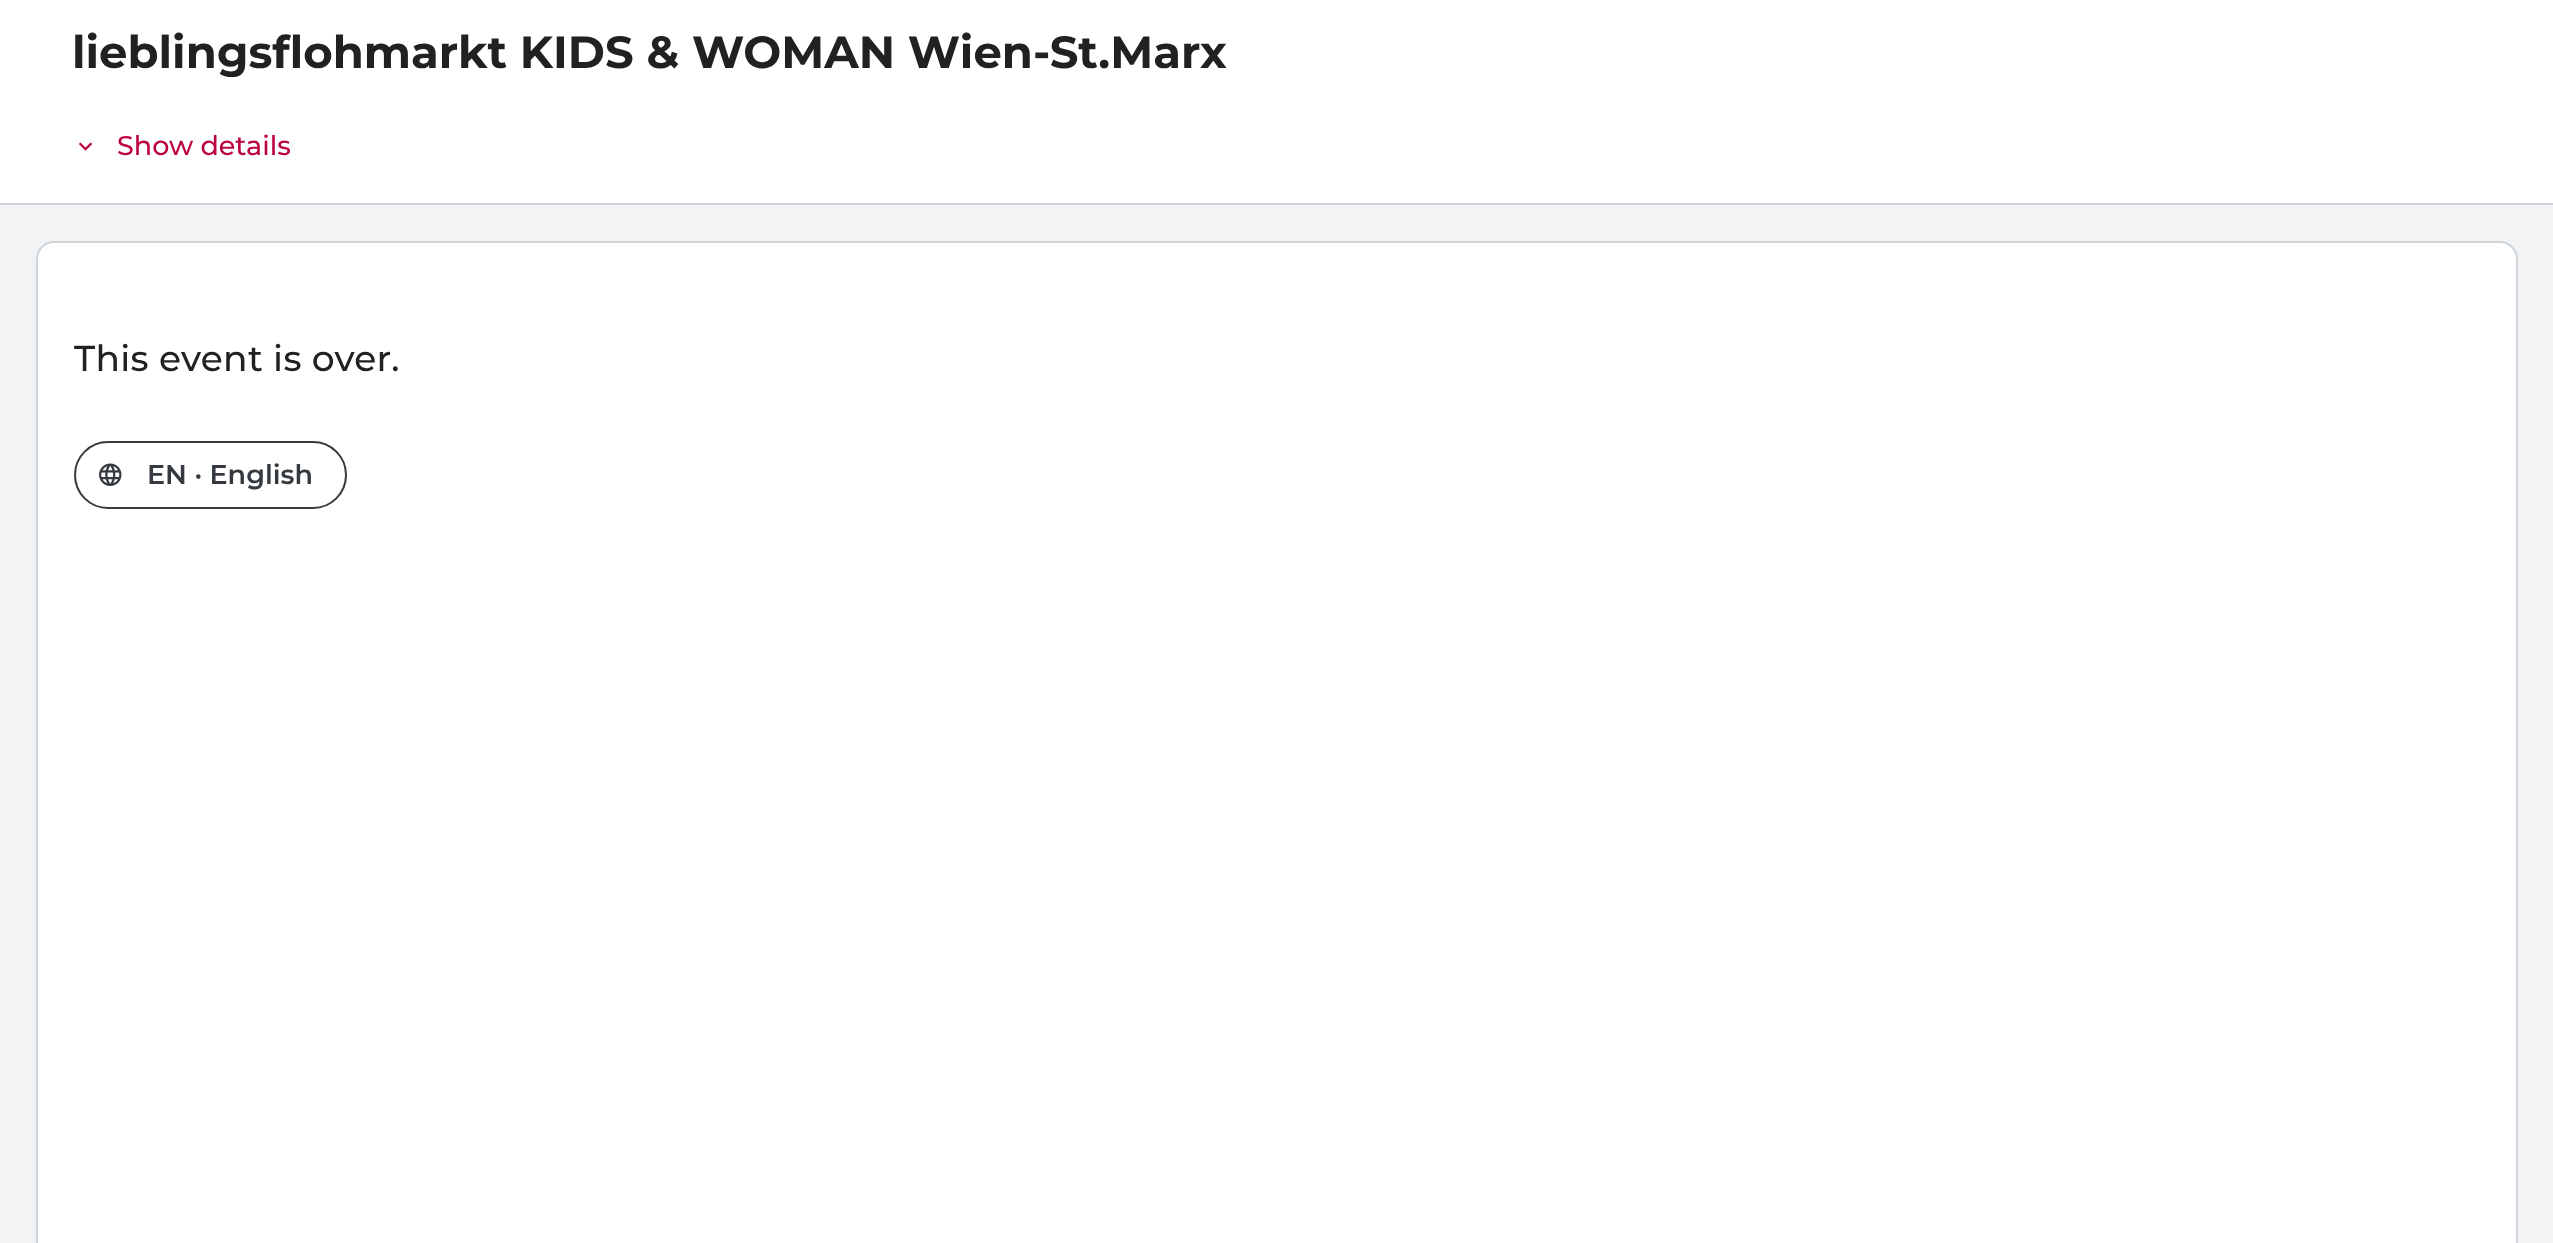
<!DOCTYPE html>
<meta charset="utf-8">
<style>body { margin: 0 } canvas { display: block }</style>
<canvas id="canvas" width="2553" height="1243"></canvas>
<img id="img1" src="img_01.png" hidden>
<img id="img2" src="img_02.png" hidden>
<script>
window.onload = function () {
	const canvas = document.getElementById("canvas");
	const ctx = canvas.getContext("2d");
	ctx.miterLimit = 4;
	ctx.fontKerning = "normal";
	function txt(s, x, y) {
		ctx.fillText(s, x, y);
	}
	function fill(x, y, w, h) {
		ctx.fillRect(x, y, w, h);
	}
	function img(id, x, y, w, h) {
		ctx.drawImage(document.getElementById(id), x, y, w, h);
	}

	ctx.fillStyle = "#F1F3F5";
	fill(0, 0, 2553, 1243);
	ctx.fillStyle = "#FFFFFF";
	fill(0, 0, 2553, 203);
	ctx.fillStyle = "#CED4DA";
	fill(0, 203, 2553, 2);
	img("img1", 78, 142, 15, 9);
	ctx.fillStyle = "#FFFFFF";
	ctx.beginPath();
	ctx.moveTo(54, 241);
	ctx.lineTo(2500, 241);
	ctx.bezierCurveTo(2510, 241, 2518, 249, 2518, 259);
	ctx.lineTo(2518, 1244);
	ctx.lineTo(36, 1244);
	ctx.lineTo(36, 259);
	ctx.bezierCurveTo(36, 249, 44, 241, 54, 241);
	ctx.closePath();
	ctx.fill();
	ctx.beginPath();
	ctx.roundRect(37, 242, 2480, 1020, 17);
	ctx.strokeStyle = "#CED4DA";
	ctx.lineWidth = 2;
	ctx.stroke();
	ctx.beginPath();
	ctx.roundRect(75, 442, 271, 66, 33);
	ctx.strokeStyle = "#343A40";
	ctx.stroke();
	img("img2", 99, 463, 23, 23);
	ctx.font = "bold 45px Montserrat";
	ctx.fillStyle = "#212121";
	txt("lieblingsflohmarkt KIDS & WOMAN Wien-St.Marx", 72, 68);
	ctx.font = "500 27px Montserrat";
	ctx.fillStyle = "#BC0341";
	txt("Show details", 117, 155);
	ctx.letterSpacing = "0.3px";
	ctx.font = "500 36px Montserrat";
	ctx.fillStyle = "#212121";
	txt("This event is over.", 74, 371);
	ctx.letterSpacing = "0px";
	ctx.font = "600 27px Montserrat";
	ctx.fillStyle = "#343A40";
	txt("EN · English", 147, 484);
};
</script>
